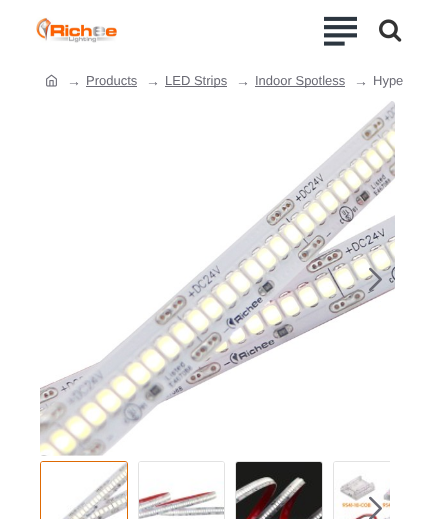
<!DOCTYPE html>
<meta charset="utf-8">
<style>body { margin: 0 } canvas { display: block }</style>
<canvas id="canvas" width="435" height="519"></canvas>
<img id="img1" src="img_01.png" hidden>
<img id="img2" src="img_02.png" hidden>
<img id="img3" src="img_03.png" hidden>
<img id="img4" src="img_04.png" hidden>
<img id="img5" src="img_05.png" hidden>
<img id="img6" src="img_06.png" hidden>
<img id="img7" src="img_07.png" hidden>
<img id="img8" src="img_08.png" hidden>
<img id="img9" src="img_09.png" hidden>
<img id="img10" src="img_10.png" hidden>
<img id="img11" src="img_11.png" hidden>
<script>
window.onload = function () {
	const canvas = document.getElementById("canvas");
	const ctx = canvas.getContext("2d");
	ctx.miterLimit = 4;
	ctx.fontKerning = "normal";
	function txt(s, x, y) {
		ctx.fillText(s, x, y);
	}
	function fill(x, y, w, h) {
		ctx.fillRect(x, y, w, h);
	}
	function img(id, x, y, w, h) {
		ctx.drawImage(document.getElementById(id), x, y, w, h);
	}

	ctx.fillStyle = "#FFFFFF";
	fill(0, 0, 435, 519);
	img("img1", 36, 17, 81, 26);
	img("img2", 324, 16, 33, 30);
	img("img3", 379, 19, 23, 23);
	img("img4", 46, 74, 11, 13);
	ctx.fillStyle = "#696973";
	fill(86, 86, 51, 1);
	fill(165, 86, 62, 1);
	fill(255, 86, 90, 1);
	img("img5", 40, 101, 355, 355);
	img("img6", 369, 267, 13, 24);
	ctx.beginPath();
	ctx.roundRect(40.5, 461.5, 87, 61, 2.5);
	ctx.strokeStyle = "#DE6902";
	ctx.stroke();
	img("img7", 41, 462, 86, 57);
	ctx.beginPath();
	ctx.roundRect(138.5, 461.5, 86, 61, 2.5);
	ctx.strokeStyle = "#E2E2E2";
	ctx.stroke();
	img("img8", 139, 462, 85, 57);
	ctx.beginPath();
	ctx.roundRect(235.5, 461.5, 87, 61, 2.5);
	ctx.stroke();
	img("img9", 236, 462, 86, 57);
	ctx.save();
	ctx.beginPath();
	ctx.rect(40, 461, 350, 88);
	ctx.clip();
	ctx.beginPath();
	ctx.roundRect(333.5, 461.5, 86, 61, 2.5);
	ctx.stroke();
	ctx.restore();
	img("img10", 334, 462, 56, 57);
	img("img11", 369, 496, 13, 23);
	ctx.font = "14px Liberation Sans";
	txt("→", 67, 86);
	ctx.font = "13px Liberation Sans";
	txt("Products", 86, 85);
	ctx.font = "14px Liberation Sans";
	txt("→", 146, 86);
	ctx.font = "13px Liberation Sans";
	txt("LED Strips", 165, 85);
	ctx.font = "14px Liberation Sans";
	txt("→", 236, 86);
	ctx.font = "13px Liberation Sans";
	txt("Indoor Spotless", 255, 85);
	ctx.font = "14px Liberation Sans";
	txt("→", 354, 86);
	ctx.font = "13px Liberation Sans";
	txt("Hype", 373, 85);
};
</script>
